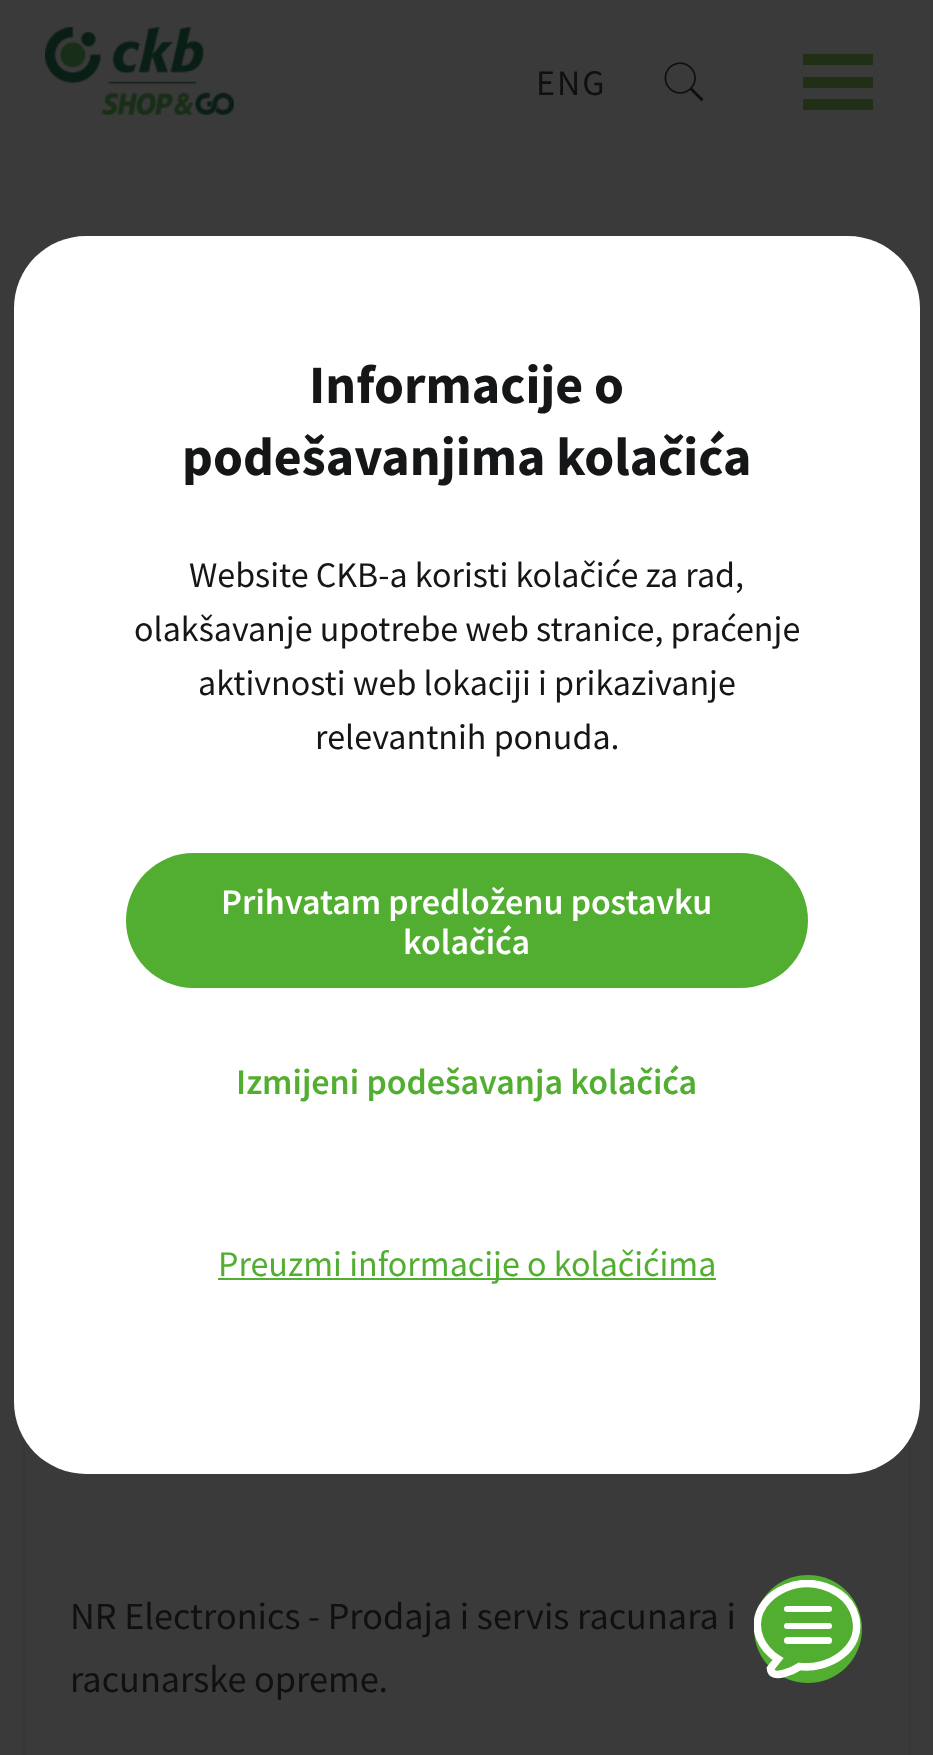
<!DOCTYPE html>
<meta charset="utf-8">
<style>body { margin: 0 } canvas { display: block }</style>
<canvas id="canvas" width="933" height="1755"></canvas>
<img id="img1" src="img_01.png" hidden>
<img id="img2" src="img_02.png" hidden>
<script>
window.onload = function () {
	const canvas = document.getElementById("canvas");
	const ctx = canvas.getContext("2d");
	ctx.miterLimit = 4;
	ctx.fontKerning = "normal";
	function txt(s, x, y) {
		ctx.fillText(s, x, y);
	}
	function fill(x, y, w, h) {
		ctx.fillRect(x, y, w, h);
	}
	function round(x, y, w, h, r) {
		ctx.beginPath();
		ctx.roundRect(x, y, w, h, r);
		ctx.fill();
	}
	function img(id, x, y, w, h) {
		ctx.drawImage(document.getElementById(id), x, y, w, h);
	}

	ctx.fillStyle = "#3A3A3A";
	fill(0, 0, 933, 1755);
	img("img1", 45, 27, 189, 88);
	img("img2", 664, 62, 40, 40);
	ctx.fillStyle = "#212F16";
	fill(803, 99, 70, 11);
	fill(803, 77, 70, 11);
	fill(803, 54, 70, 11);
	ctx.strokeStyle = "#373737";
	ctx.lineWidth = 2;
	ctx.strokeRect(24, 647, 886, 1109);
	ctx.fillStyle = "#FFFFFF";
	round(14, 236, 906, 1238, 72);
	ctx.fillStyle = "#52AE30";
	round(126, 853, 682, 135, 67.5);
	fill(218, 1278, 498, 2);
	ctx.beginPath();
	ctx.arc(808, 1629, 54, 0, Math.PI * 2);
	ctx.fill();
	ctx.save();
	ctx.beginPath();
	ctx.rect(754, 1580, 108, 99);
	ctx.clip();
	ctx.beginPath();
	ctx.moveTo(807, 1583.5);
	ctx.bezierCurveTo(818, 1583.5, 829, 1587, 838.5, 1593);
	ctx.bezierCurveTo(846.5, 1598.5, 853, 1607, 855.5, 1617);
	ctx.bezierCurveTo(863.5, 1649.5, 828, 1670, 799.5, 1666.5);
	ctx.bezierCurveTo(795, 1669.5, 771.5, 1681.5, 770.5, 1668.5);
	ctx.lineTo(778, 1659);
	ctx.bezierCurveTo(770, 1654, 763.5, 1647, 760, 1638.5);
	ctx.bezierCurveTo(748, 1607.5, 778.5, 1583.5, 807, 1583.5);
	ctx.closePath();
	ctx.strokeStyle = "#FFFFFF";
	ctx.lineWidth = 7.6;
	ctx.stroke();
	ctx.restore();
	ctx.fillStyle = "#FFFFFF";
	round(784, 1606, 48, 6, 3);
	round(784, 1623, 48, 6, 3);
	round(784, 1637, 48, 7, 3.5);
	ctx.letterSpacing = "2px";
	ctx.font = "36px Source Sans Pro";
	ctx.fillStyle = "#101010";
	txt("ENG", 536, 95);
	ctx.letterSpacing = "0px";
	ctx.font = "bold 54px Source Sans Pro";
	ctx.fillStyle = "#151617";
	txt("Informacije o", 309, 403);
	txt("podešavanjima kolačića", 182, 475);
	ctx.font = "36px Source Sans Pro";
	txt("Website CKB-a koristi kolačiće za rad,", 189, 587);
	txt("olakšavanje upotrebe web stranice, praćenje", 134, 641);
	txt("aktivnosti web lokaciji i prikazivanje", 198, 695);
	txt("relevantnih ponuda.", 315, 749);
	ctx.font = "600 36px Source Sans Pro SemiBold";
	ctx.fillStyle = "#FFFFFF";
	txt("Prihvatam predloženu postavku", 221, 914);
	txt("kolačića", 403, 954);
	ctx.fillStyle = "#52AE30";
	txt("Izmijeni podešavanja kolačića", 236, 1094);
	ctx.font = "36px Source Sans Pro";
	txt("Preuzmi informacije o kolačićima", 218, 1276);
	ctx.font = "38.25px Source Sans Pro";
	ctx.fillStyle = "#101010";
	txt("NR Electronics - Prodaja i servis racunara i", 70, 1629);
	txt("racunarske opreme.", 70, 1692);
};
</script>
